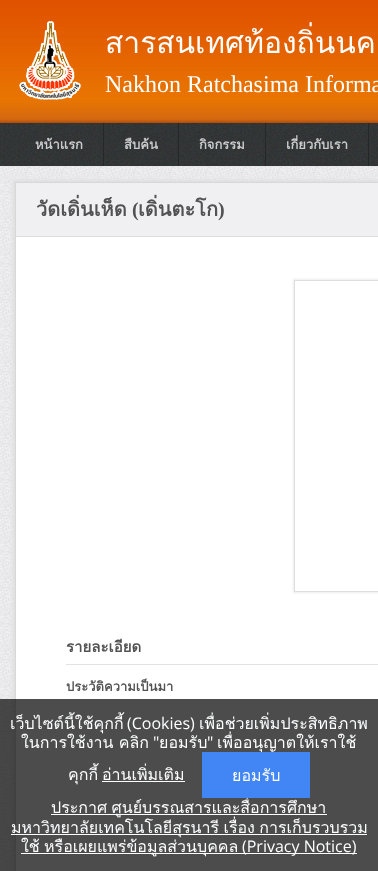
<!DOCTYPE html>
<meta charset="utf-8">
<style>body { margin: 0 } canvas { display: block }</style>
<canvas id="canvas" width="378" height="871"></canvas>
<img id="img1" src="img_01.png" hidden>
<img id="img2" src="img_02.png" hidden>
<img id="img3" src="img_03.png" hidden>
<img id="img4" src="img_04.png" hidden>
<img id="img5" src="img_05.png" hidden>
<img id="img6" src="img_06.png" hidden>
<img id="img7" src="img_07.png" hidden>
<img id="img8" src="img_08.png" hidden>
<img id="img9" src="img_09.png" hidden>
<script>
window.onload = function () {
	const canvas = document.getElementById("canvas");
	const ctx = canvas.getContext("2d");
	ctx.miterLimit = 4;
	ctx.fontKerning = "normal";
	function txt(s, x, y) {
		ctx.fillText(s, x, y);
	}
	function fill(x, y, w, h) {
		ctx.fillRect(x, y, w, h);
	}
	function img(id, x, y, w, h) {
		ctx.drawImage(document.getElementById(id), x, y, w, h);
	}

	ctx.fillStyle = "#FFFFFF";
	fill(0, 0, 378, 871);
	img("img1", 0, 166, 378, 705);
	img("img2", 0, 0, 378, 123);
	img("img3", 19, 21, 62, 79);
	ctx.fillStyle = "#313435";
	fill(0, 123, 103, 43);
	img("img4", 0, 123, 15, 43);
	img("img5", 15, 123, 88, 43);
	ctx.fillStyle = "#252728";
	fill(103, 123, 1, 43);
	ctx.fillStyle = "#313435";
	fill(104, 123, 74, 43);
	img("img6", 104, 123, 74, 43);
	ctx.fillStyle = "#252728";
	fill(178, 123, 1, 43);
	ctx.fillStyle = "#313435";
	fill(179, 123, 86, 43);
	img("img7", 179, 123, 86, 43);
	ctx.fillStyle = "#252728";
	fill(265, 123, 1, 43);
	ctx.fillStyle = "#313435";
	fill(266, 123, 102, 43);
	img("img8", 266, 123, 102, 43);
	ctx.fillStyle = "#252728";
	fill(368, 123, 1, 43);
	ctx.fillStyle = "#313435";
	fill(369, 123, 9, 43);
	img("img9", 369, 123, 9, 43);
	ctx.fillStyle = "#DEDEDE";
	ctx.filter = "blur(1.5px)";
	ctx.beginPath();
	ctx.rect(13, 180, 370, 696);
	ctx.fill();
	ctx.filter = "none";
	ctx.fillStyle = "#FFFFFF";
	fill(16, 237, 362, 634);
	ctx.strokeStyle = "#D8D8D8";
	ctx.strokeRect(15.5, 182.5, 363, 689);
	ctx.fillStyle = "#F0F0F3";
	fill(16, 183, 362, 53);
	ctx.save();
	ctx.beginPath();
	ctx.moveTo(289, 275);
	ctx.lineTo(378, 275);
	ctx.lineTo(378, 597);
	ctx.lineTo(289, 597);
	ctx.closePath();
	ctx.moveTo(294, 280);
	ctx.lineTo(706, 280);
	ctx.lineTo(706, 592);
	ctx.lineTo(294, 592);
	ctx.closePath();
	ctx.clip("evenodd");
	ctx.fillStyle = "#ECECEC";
	ctx.filter = "blur(1px)";
	ctx.beginPath();
	ctx.rect(293, 279, 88, 314);
	ctx.fill();
	ctx.filter = "none";
	ctx.restore();
	ctx.strokeStyle = "#DEDEDE";
	ctx.strokeRect(294.5, 280.5, 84, 311);
	ctx.fillStyle = "#E2E2E2";
	fill(66, 664, 312, 1);
	ctx.fillStyle = "rgba(0, 0, 0, 0.7)";
	fill(0, 699, 378, 172);
	ctx.fillStyle = "#FFFFFF";
	fill(102, 781, 83, 1);
	fill(51, 814, 276, 1);
	fill(11, 834, 356, 1);
	fill(21, 853, 336, 1);
	ctx.wordSpacing = "-2px";
	ctx.font = "30px Loma";
	ctx.fillStyle = "#FDFEFF";
	txt("สารสนเทศท้องถิ่นนค", 105, 53);
	ctx.wordSpacing = "0px";
	ctx.font = "24px Liberation Serif";
	txt("Nakhon Ratchasima Informa", 105, 92);
	ctx.font = "bold 13px Loma";
	ctx.fillStyle = "#CACCCD";
	txt("หน้าแรก", 35, 149);
	txt("สืบค้น", 124, 149);
	txt("กิจกรรม", 199, 149);
	txt("เกี่ยวกับเรา", 286, 149);
	ctx.font = "bold 20px Loma";
	ctx.fillStyle = "#525253";
	txt("วัดเดิ่นเห็ด", 36, 216);
	ctx.font = "bold 20px Liberation Serif";
	txt("(", 132, 216);
	ctx.font = "bold 20px Loma";
	txt("เดิ่นตะโก", 138, 216);
	ctx.font = "bold 20px Liberation Serif";
	txt(")", 218, 216);
	ctx.font = "bold 15px Loma";
	txt("รายละเอียด", 66, 652);
	ctx.font = "bold 13px Loma";
	txt("ประวัติความเป็นมา", 66, 691);
	ctx.font = "16px Loma";
	ctx.fillStyle = "#FDFEFF";
	txt("เว็บไซต์นี้ใช้คุกกี้", 10, 729);
	ctx.font = "16px Open Sans";
	txt("(Cookies)", 127, 729);
	ctx.font = "16px Loma";
	txt("เพื่อช่วยเพิ่มประสิทธิภาพ", 199, 729);
	txt("ในการใช้งาน คลิก", 21, 748);
	ctx.font = "16px Open Sans";
	txt("\"", 153, 748);
	ctx.font = "16px Loma";
	txt("ยอมรับ", 159, 748);
	ctx.font = "16px Open Sans";
	txt("\"", 207, 748);
	ctx.font = "16px Loma";
	txt("เพื่ออนุญาตให้เราใช้", 217, 748);
	txt("คุกกี้", 68, 780);
	txt("อ่านเพิ่มเติม", 102, 780);
	ctx.wordSpacing = "-1px";
	txt("ประกาศ ศูนย์บรรณสารและสื่อการศึกษา", 51, 813);
	ctx.fillStyle = "#4285F4";
	fill(202, 752, 108, 46);
	ctx.wordSpacing = "0px";
	ctx.fillStyle = "#FDFEFF";
	txt("ยอมรับ", 232, 781);
	ctx.wordSpacing = "-1px";
	txt("มหาวิทยาลัยเทคโนโลยีสุรนารี เรื่อง การเก็บรวบรวม", 11, 833);
	ctx.wordSpacing = "0px";
	txt("ใช้", 21, 852);
	txt("หรือเผยแพร่ข้อมูลส่วนบุคคล", 44, 852);
	ctx.font = "16px Open Sans";
	txt("(Privacy Notice)", 242, 852);
};
</script>
